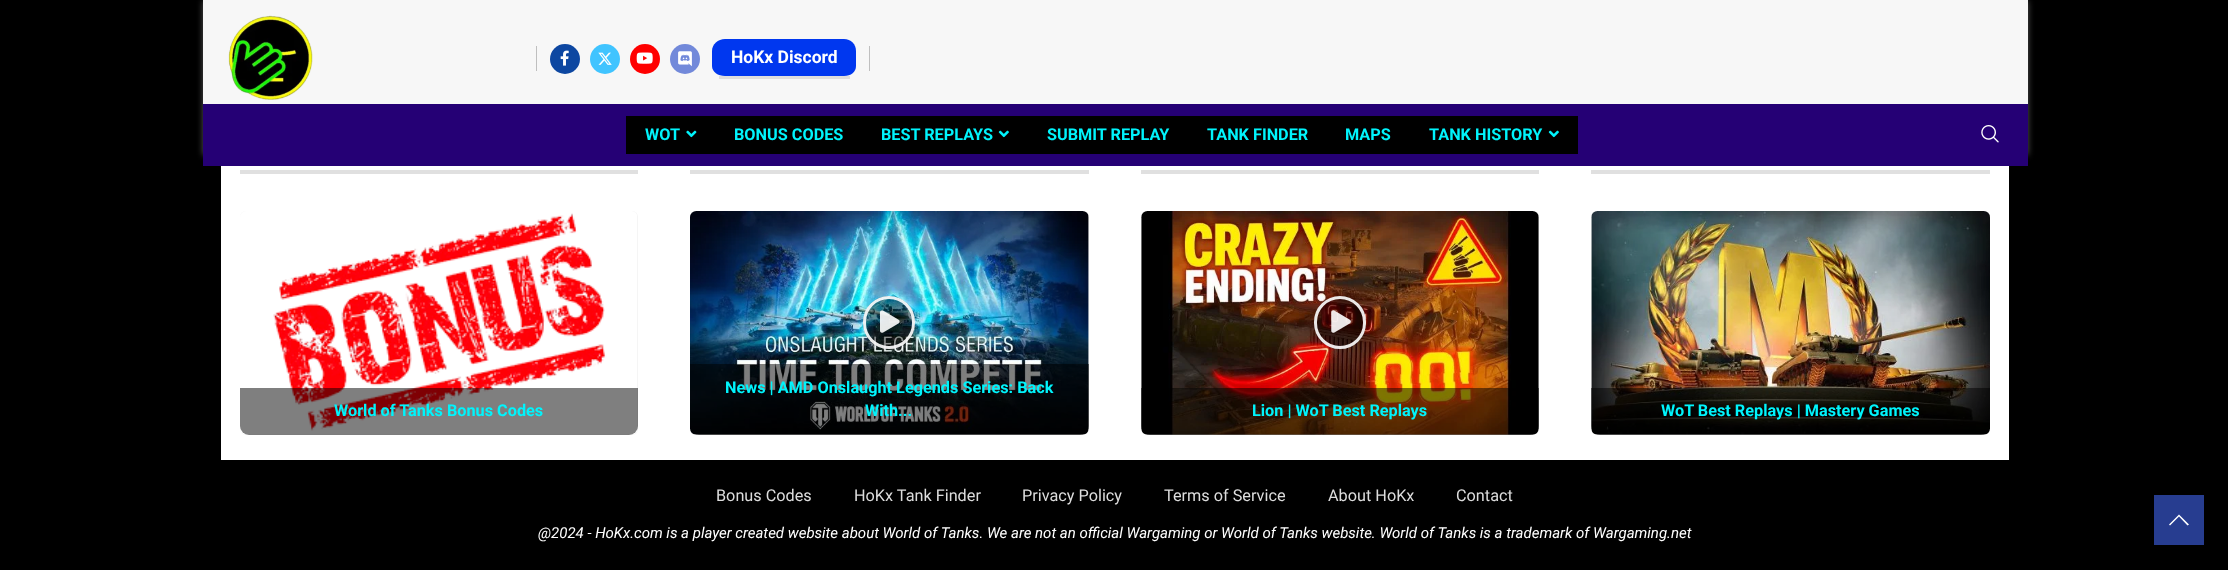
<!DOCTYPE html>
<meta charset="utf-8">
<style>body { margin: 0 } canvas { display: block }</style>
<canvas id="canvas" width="2228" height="570"></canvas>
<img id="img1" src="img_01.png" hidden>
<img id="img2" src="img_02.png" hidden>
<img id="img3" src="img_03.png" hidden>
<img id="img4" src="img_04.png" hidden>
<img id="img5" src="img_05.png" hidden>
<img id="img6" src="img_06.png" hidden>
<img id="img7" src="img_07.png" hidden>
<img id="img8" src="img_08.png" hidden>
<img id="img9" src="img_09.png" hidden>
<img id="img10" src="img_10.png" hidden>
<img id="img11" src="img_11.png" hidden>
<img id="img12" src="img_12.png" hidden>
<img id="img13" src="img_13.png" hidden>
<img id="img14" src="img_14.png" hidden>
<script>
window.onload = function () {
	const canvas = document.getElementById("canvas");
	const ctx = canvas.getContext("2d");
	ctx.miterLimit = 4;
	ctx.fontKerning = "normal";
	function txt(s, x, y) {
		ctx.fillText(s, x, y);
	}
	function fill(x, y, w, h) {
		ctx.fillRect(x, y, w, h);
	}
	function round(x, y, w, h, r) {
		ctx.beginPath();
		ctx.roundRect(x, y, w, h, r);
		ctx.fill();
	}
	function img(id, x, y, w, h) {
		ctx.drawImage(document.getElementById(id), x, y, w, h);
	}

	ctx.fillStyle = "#000000";
	fill(0, 0, 2228, 570);
	ctx.fillStyle = "#FFFFFF";
	fill(221, 166, 1788, 294);
	ctx.fillStyle = "rgba(190, 190, 190, 0.46)";
	ctx.filter = "blur(3px)";
	ctx.beginPath();
	ctx.rect(203, 1, 1825, 154);
	ctx.fill();
	ctx.filter = "none";
	ctx.fillStyle = "#F7F7F7";
	fill(203, 0, 1825, 104);
	img("img1", 228, 15, 85, 85);
	ctx.fillStyle = "#BFBFBF";
	fill(536, 46, 1, 25);
	ctx.fillStyle = "#0D47A1";
	ctx.beginPath();
	ctx.arc(565, 59, 15, 0, Math.PI * 2);
	ctx.fill();
	img("img2", 560, 50, 9, 16);
	ctx.fillStyle = "#40C4FF";
	ctx.beginPath();
	ctx.arc(605, 59, 15, 0, Math.PI * 2);
	ctx.fill();
	img("img3", 598, 52, 14, 13);
	ctx.fillStyle = "#FF0000";
	ctx.beginPath();
	ctx.arc(645, 59, 15, 0, Math.PI * 2);
	ctx.fill();
	img("img4", 636, 52, 17, 12);
	ctx.fillStyle = "#7289DA";
	ctx.beginPath();
	ctx.arc(685, 59, 15, 0, Math.PI * 2);
	ctx.fill();
	img("img5", 678, 51, 14, 16);
	ctx.fillStyle = "#0037EF";
	ctx.beginPath();
	ctx.moveTo(725, 39);
	ctx.lineTo(844, 39);
	ctx.bezierCurveTo(851, 39, 856, 44, 856, 51);
	ctx.lineTo(856, 66);
	ctx.bezierCurveTo(856, 72, 851, 76, 844, 76);
	ctx.lineTo(725, 76);
	ctx.bezierCurveTo(718, 76, 712, 72, 712, 66);
	ctx.lineTo(712, 51);
	ctx.bezierCurveTo(712, 44, 718, 39, 725, 39);
	ctx.closePath();
	ctx.fill();
	ctx.fillStyle = "#DEDEDE";
	fill(719, 76, 131, 3);
	ctx.fillStyle = "#BFBFBF";
	fill(869, 46, 1, 25);
	ctx.fillStyle = "#250075";
	fill(203, 104, 1825, 62);
	ctx.fillStyle = "#000000";
	fill(626, 116, 952, 38);
	img("img6", 686, 130, 11, 8);
	img("img7", 998, 130, 11, 8);
	img("img7", 1548, 130, 11, 8);
	img("img8", 1981, 125, 18, 18);
	ctx.fillStyle = "#E0E0E0";
	fill(240, 170, 398, 4);
	ctx.fillStyle = "#F5F5F5";
	round(240, 211, 398, 224, 6);
	img("img9", 240, 211, 397, 224);
	ctx.fillStyle = "rgba(0, 0, 0, 0.5)";
	ctx.beginPath();
	ctx.roundRect(240, 388, 398, 47, [0, 0, 9, 9]);
	ctx.fill();
	ctx.fillStyle = "#E0E0E0";
	fill(690, 170, 399, 4);
	ctx.fillStyle = "#F5F5F5";
	round(690, 211, 399, 224, 6);
	img("img10", 690, 211, 399, 224);
	ctx.fillStyle = "rgba(0, 0, 0, 0.4)";
	round(863, 296, 52, 53, 26);
	ctx.beginPath();
	ctx.roundRect(864.5, 297.5, 49, 50, 24.5);
	ctx.strokeStyle = "rgba(255, 255, 255, 0.9)";
	ctx.lineWidth = 3;
	ctx.stroke();
	img("img11", 880, 310, 20, 23);
	ctx.fillStyle = "rgba(0, 0, 0, 0.5)";
	ctx.beginPath();
	ctx.roundRect(690, 364, 399, 71, [0, 0, 9, 9]);
	ctx.fill();
	ctx.fillStyle = "#E0E0E0";
	fill(1141, 170, 398, 4);
	ctx.fillStyle = "#F5F5F5";
	round(1141, 211, 398, 224, 6);
	img("img12", 1141, 211, 398, 224);
	ctx.fillStyle = "rgba(0, 0, 0, 0.4)";
	round(1314, 296, 52, 53, 26);
	ctx.beginPath();
	ctx.roundRect(1315.5, 297.5, 49, 50, 24.5);
	ctx.stroke();
	img("img13", 1331, 310, 20, 23);
	ctx.fillStyle = "rgba(0, 0, 0, 0.5)";
	ctx.beginPath();
	ctx.roundRect(1141, 388, 398, 47, [0, 0, 9, 9]);
	ctx.fill();
	ctx.fillStyle = "#E0E0E0";
	fill(1591, 170, 399, 4);
	ctx.fillStyle = "#F5F5F5";
	round(1591, 211, 399, 224, 6);
	img("img14", 1591, 211, 399, 224);
	ctx.fillStyle = "rgba(0, 0, 0, 0.5)";
	ctx.beginPath();
	ctx.roundRect(1591, 388, 399, 47, [0, 0, 9, 9]);
	ctx.fill();
	ctx.fillStyle = "#273D90";
	fill(2154, 495, 50, 50);
	ctx.fillStyle = "#FFFFFF";
	ctx.beginPath();
	ctx.moveTo(2179, 514.5);
	ctx.lineTo(2169, 524.5);
	ctx.lineTo(2170, 525.5);
	ctx.lineTo(2179, 516.5);
	ctx.lineTo(2187.5, 525.5);
	ctx.lineTo(2189, 524.5);
	ctx.closePath();
	ctx.fill();
	ctx.font = "bold 17.5px Roboto";
	txt("HoKx Discord", 731, 63);
	ctx.font = "bold 16.25px Roboto";
	ctx.fillStyle = "#00F4FC";
	txt("WOT", 645, 140);
	txt("BONUS CODES", 734, 140);
	txt("BEST REPLAYS", 881, 140);
	txt("SUBMIT REPLAY", 1047, 140);
	txt("TANK FINDER", 1207, 140);
	txt("MAPS", 1345, 140);
	txt("TANK HISTORY", 1429, 140);
	txt("World of Tanks Bonus Codes", 334, 416);
	txt("News | AMD Onslaught Legends Series: Back", 725, 393);
	txt("With...", 865, 416);
	txt("Lion | WoT Best Replays", 1252, 416);
	txt("WoT Best Replays | Mastery Games", 1661, 416);
	ctx.font = "16.25px Roboto";
	ctx.fillStyle = "#DDDDDD";
	txt("Bonus Codes", 716, 501);
	txt("HoKx Tank Finder", 854, 501);
	txt("Privacy Policy", 1022, 501);
	txt("Terms of Service", 1164, 501);
	txt("About HoKx", 1328, 501);
	txt("Contact", 1456, 501);
	ctx.font = "italic 15px Roboto";
	ctx.fillStyle = "#FFFFFF";
	txt("@2024 - HoKx.com is a player created website about World of Tanks. We are not an official Wargaming or World of Tanks website. World of Tanks is a trademark of Wargaming.net", 538, 538);
};
</script>
